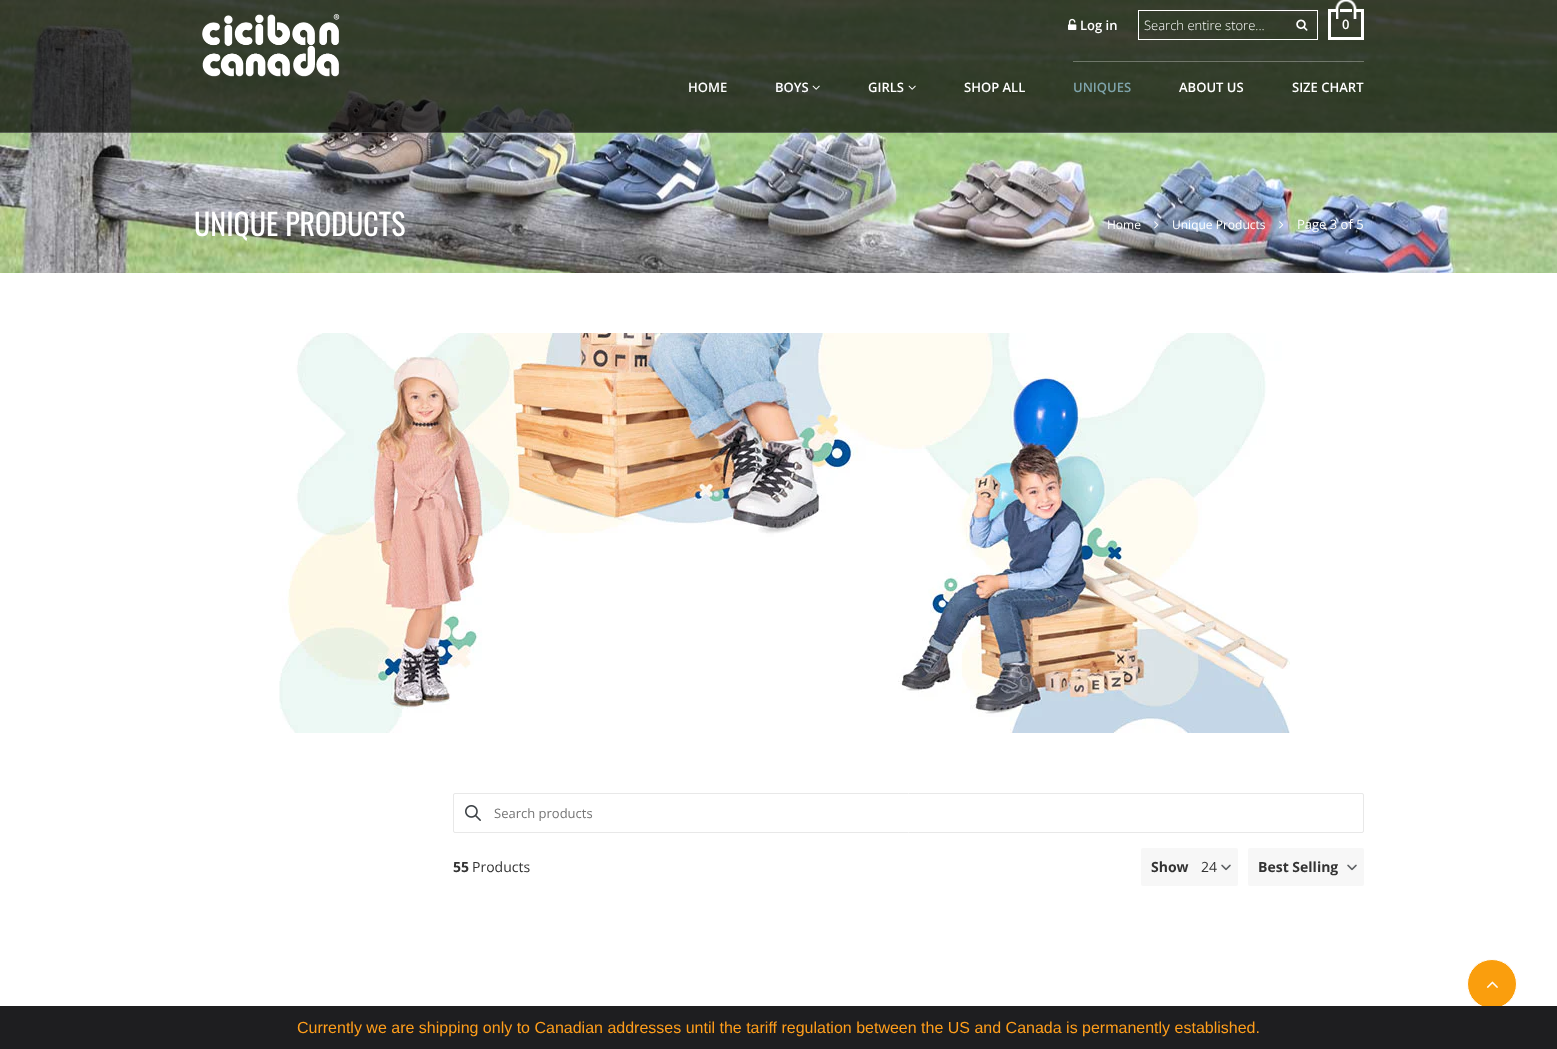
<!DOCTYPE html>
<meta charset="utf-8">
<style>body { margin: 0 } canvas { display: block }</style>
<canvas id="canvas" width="1557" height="1049"></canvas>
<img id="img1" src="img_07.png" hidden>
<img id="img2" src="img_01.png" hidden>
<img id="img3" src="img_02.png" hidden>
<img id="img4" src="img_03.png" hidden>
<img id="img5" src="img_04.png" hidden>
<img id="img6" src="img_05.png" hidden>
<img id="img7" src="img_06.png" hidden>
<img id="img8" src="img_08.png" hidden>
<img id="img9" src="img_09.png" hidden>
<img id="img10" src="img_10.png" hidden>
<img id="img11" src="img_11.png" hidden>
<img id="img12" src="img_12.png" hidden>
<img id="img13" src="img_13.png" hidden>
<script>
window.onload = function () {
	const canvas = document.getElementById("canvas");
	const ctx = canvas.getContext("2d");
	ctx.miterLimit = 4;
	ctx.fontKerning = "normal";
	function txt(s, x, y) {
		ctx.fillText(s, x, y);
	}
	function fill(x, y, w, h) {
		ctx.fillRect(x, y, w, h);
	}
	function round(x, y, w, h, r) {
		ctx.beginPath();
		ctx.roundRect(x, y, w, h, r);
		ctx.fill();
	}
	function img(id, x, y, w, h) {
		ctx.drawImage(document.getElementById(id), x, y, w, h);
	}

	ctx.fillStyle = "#FFFFFF";
	fill(0, 0, 1557, 1049);
	img("img1", 0, 0, 1557, 273);
	ctx.fillStyle = "rgba(0, 0, 0, 0.71)";
	fill(0, 0, 1557, 133);
	ctx.fillStyle = "rgba(255, 255, 255, 0.2)";
	fill(0, 132, 1557, 1);
	img("img2", 202, 14, 138, 63);
	ctx.fillStyle = "rgba(255, 255, 255, 0.3)";
	fill(1073, 61, 291, 1);
	img("img3", 1068, 18, 9, 12);
	ctx.strokeStyle = "#FFFFFF";
	ctx.strokeRect(1138.5, 10.5, 179, 29);
	img("img4", 1296, 19, 12, 12);
	img("img5", 1328, 0, 36, 40);
	img("img6", 812, 85, 8, 5);
	img("img7", 908, 85, 8, 5);
	img("img8", 1154, 221, 5, 8);
	img("img9", 1279, 221, 5, 8);
	img("img10", 279, 333, 1011, 400);
	ctx.beginPath();
	ctx.roundRect(453.5, 793.5, 910, 39, 1.5);
	ctx.strokeStyle = "#E8E8E8";
	ctx.stroke();
	img("img11", 465, 805, 16, 16);
	ctx.fillStyle = "#F7F7F7";
	round(1141, 848, 97, 38, 2);
	img("img12", 1221, 864, 10, 7);
	round(1248, 848, 116, 38, 2);
	img("img12", 1347, 864, 10, 7);
	ctx.fillStyle = "#FA9E0D";
	ctx.beginPath();
	ctx.arc(1492, 984, 24.5, 0, Math.PI * 2);
	ctx.fill();
	ctx.strokeStyle = "#FFFFFF";
	ctx.stroke();
	img("img13", 1486, 981, 12, 7);
	ctx.fillStyle = "#1E1E20";
	fill(0, 1006, 1557, 43);
	ctx.font = "600 13px Open Sans";
	ctx.fillStyle = "#FFFFFF";
	txt("Log in", 1080, 30);
	ctx.font = "300 13px Open Sans";
	txt("Search entire store...", 1144, 30);
	ctx.font = "600 13px Open Sans";
	txt("0", 1342, 29);
	txt("HOME", 688, 92);
	txt("BOYS", 775, 92);
	txt("GIRLS", 868, 92);
	txt("SHOP ALL", 964, 92);
	ctx.fillStyle = "#7FA4AC";
	txt("UNIQUES", 1073, 92);
	ctx.fillStyle = "#FFFFFF";
	txt("ABOUT US", 1179, 92);
	txt("SIZE CHART", 1292, 92);
	ctx.font = "30px Oswald";
	txt("UNIQUE PRODUCTS", 194, 236);
	ctx.font = "12px Open Sans";
	txt("Home", 1107, 229);
	txt("Unique Products", 1172, 229);
	ctx.font = "13px Open Sans";
	txt("Page 3 of 5", 1297, 229);
	ctx.fillStyle = "#757575";
	txt("Search products", 494, 818);
	ctx.font = "bold 14px Open Sans";
	ctx.fillStyle = "#333333";
	txt("55", 453, 872);
	ctx.font = "14px Open Sans";
	txt("Products", 472, 872);
	ctx.font = "bold 14px Open Sans";
	txt("Show", 1151, 872);
	ctx.font = "14px Open Sans";
	txt("24", 1201, 872);
	ctx.font = "bold 14px Open Sans";
	txt("Best Selling", 1258, 872);
	ctx.font = "16px Liberation Sans";
	ctx.fillStyle = "#FF9E1B";
	txt("Currently we are shipping only to Canadian addresses until the tariff regulation between the US and Canada is permanently established.", 297, 1033);
};
</script>
